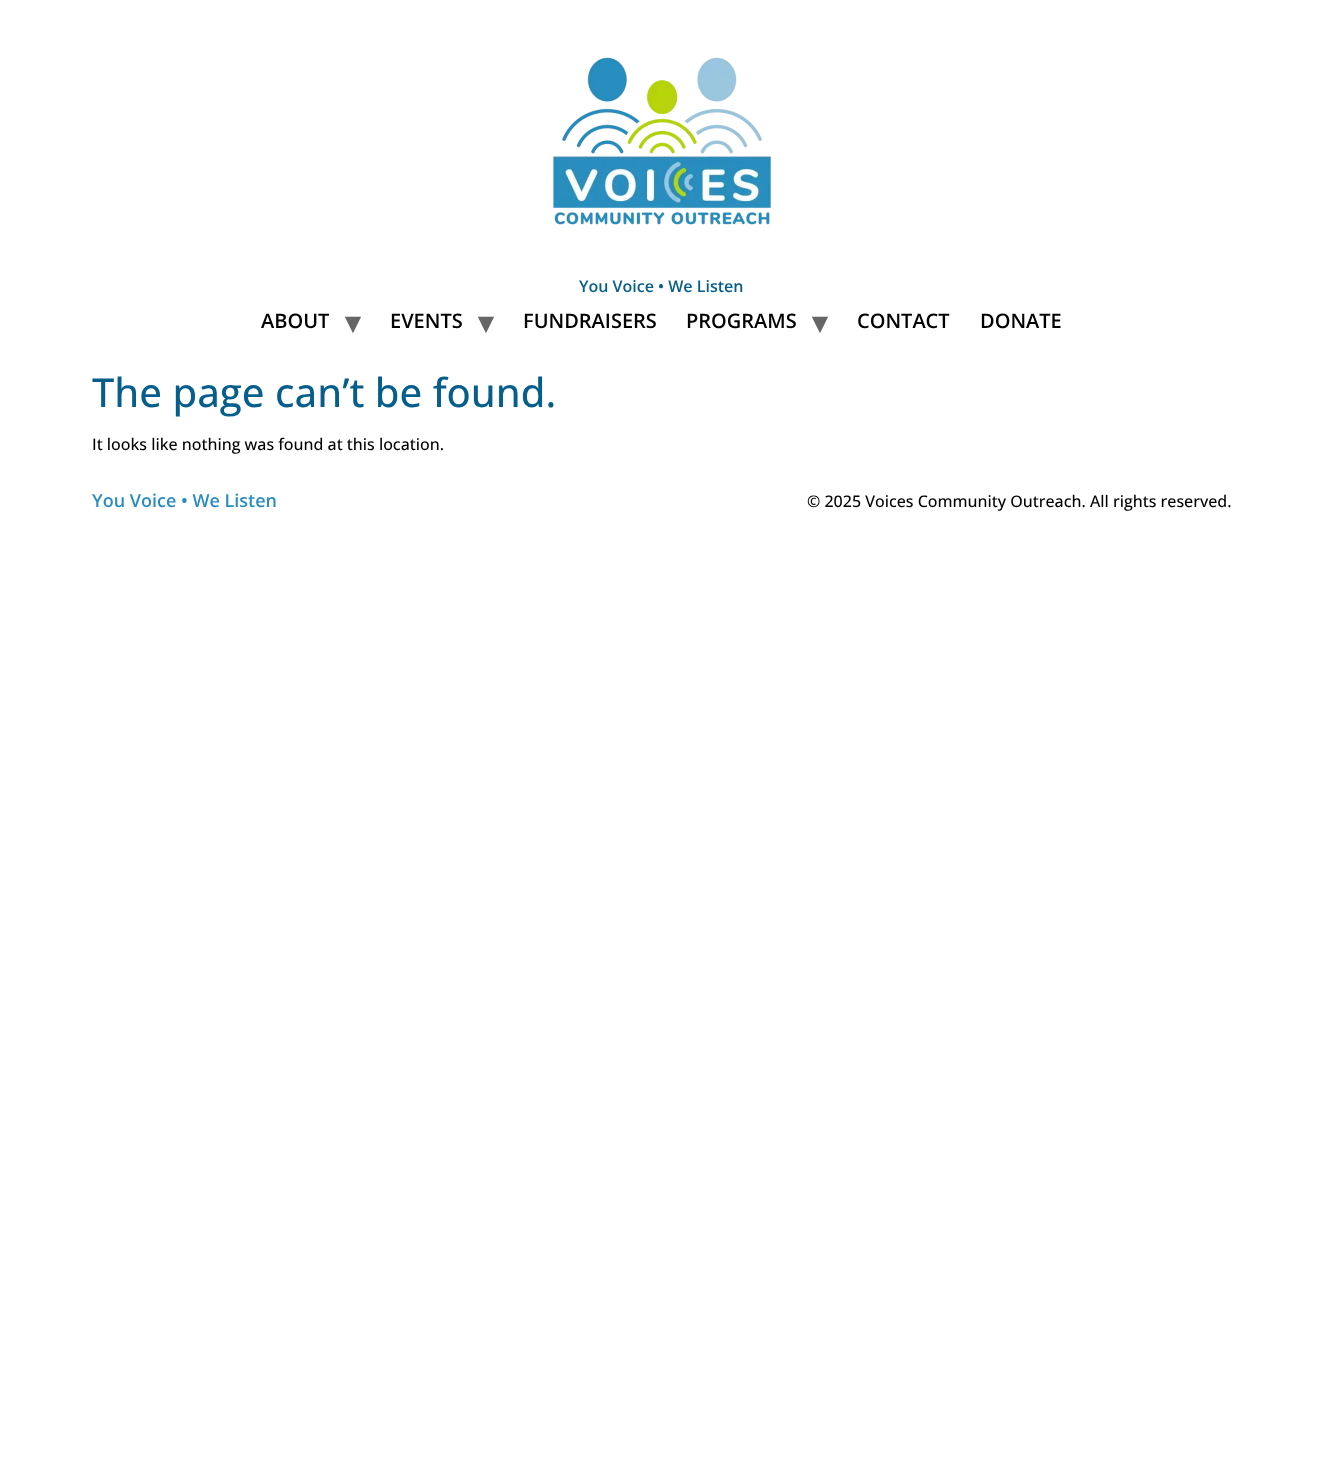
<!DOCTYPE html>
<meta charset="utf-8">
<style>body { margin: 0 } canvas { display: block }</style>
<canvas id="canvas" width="1323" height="1480"></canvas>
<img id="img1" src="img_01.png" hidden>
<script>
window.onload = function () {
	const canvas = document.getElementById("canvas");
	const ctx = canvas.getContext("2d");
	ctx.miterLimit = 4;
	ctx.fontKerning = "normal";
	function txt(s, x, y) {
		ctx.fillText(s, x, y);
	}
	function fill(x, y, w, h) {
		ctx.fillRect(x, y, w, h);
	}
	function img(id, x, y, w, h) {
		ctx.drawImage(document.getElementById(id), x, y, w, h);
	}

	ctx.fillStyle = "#FFFFFF";
	fill(0, 0, 1323, 1480);
	img("img1", 553, 57, 218, 168);
	ctx.font = "600 16px Open Sans";
	ctx.fillStyle = "#055E8B";
	txt("You Voice • We Listen", 579, 292);
	ctx.font = "600 20px Open Sans";
	ctx.fillStyle = "#000000";
	txt("ABOUT", 261, 328);
	ctx.font = "bold 30px DejaVu Sans";
	ctx.fillStyle = "#666666";
	txt("▾", 345, 333);
	ctx.font = "600 20px Open Sans";
	ctx.fillStyle = "#000000";
	txt("EVENTS", 390, 328);
	ctx.font = "bold 30px DejaVu Sans";
	ctx.fillStyle = "#666666";
	txt("▾", 478, 333);
	ctx.font = "600 20px Open Sans";
	ctx.fillStyle = "#000000";
	txt("FUNDRAISERS", 523, 328);
	txt("PROGRAMS", 686, 328);
	ctx.font = "bold 30px DejaVu Sans";
	ctx.fillStyle = "#666666";
	txt("▾", 812, 333);
	ctx.font = "600 20px Open Sans";
	ctx.fillStyle = "#000000";
	txt("CONTACT", 857, 328);
	txt("DONATE", 980, 328);
	ctx.font = "500 40px Open Sans";
	ctx.fillStyle = "#055E8B";
	txt("The page can’t be found.", 92, 407);
	ctx.font = "500 16px Open Sans";
	ctx.fillStyle = "#000000";
	txt("It looks like nothing was found at this location.", 92, 450);
	ctx.font = "600 18px Open Sans";
	ctx.fillStyle = "#2A8DBF";
	txt("You Voice • We Listen", 92, 507);
	ctx.font = "500 16px Open Sans";
	ctx.fillStyle = "#000000";
	txt("© 2025 Voices Community Outreach. All rights reserved.", 807, 507);
};
</script>
